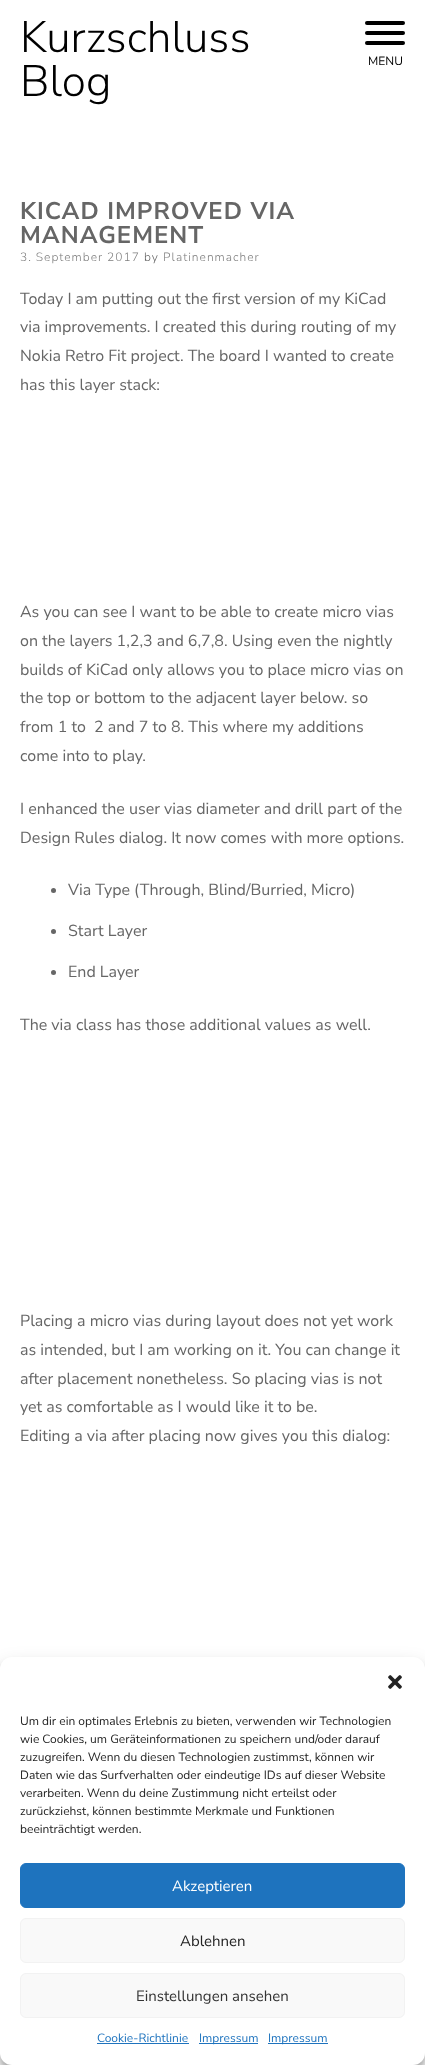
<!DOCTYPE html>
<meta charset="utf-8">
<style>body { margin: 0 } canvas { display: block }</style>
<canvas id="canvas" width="425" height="2065"></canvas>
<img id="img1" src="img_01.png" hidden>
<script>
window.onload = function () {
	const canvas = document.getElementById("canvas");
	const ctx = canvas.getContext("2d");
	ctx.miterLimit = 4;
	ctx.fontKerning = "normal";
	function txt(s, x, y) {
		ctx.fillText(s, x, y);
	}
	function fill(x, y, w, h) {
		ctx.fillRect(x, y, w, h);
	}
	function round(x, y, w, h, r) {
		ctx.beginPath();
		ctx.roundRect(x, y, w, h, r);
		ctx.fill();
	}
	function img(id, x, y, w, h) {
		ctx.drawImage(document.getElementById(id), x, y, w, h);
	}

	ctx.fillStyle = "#FFFFFF";
	fill(0, 0, 425, 2065);
	ctx.fillStyle = "#000000";
	round(365, 31, 40, 4, 2);
	round(365, 21, 40, 4, 2);
	round(365, 41, 40, 4, 2);
	ctx.fillStyle = "#666666";
	ctx.beginPath();
	ctx.arc(53.5, 890.5, 2.5, 0, Math.PI * 2);
	ctx.fill();
	ctx.beginPath();
	ctx.arc(53.5, 931.5, 2.5, 0, Math.PI * 2);
	ctx.fill();
	ctx.beginPath();
	ctx.arc(53.5, 972.5, 2.5, 0, Math.PI * 2);
	ctx.fill();
	ctx.fillStyle = "rgba(0, 0, 0, 0.23)";
	ctx.filter = "blur(3px)";
	ctx.beginPath();
	ctx.roundRect(0, 1663, 425, 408, 12);
	ctx.fill();
	ctx.filter = "none";
	ctx.fillStyle = "rgba(0, 0, 0, 0.19)";
	ctx.filter = "blur(10px)";
	ctx.beginPath();
	ctx.roundRect(0, 1667, 425, 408, 12);
	ctx.fill();
	ctx.filter = "none";
	ctx.fillStyle = "#FFFFFF";
	round(0, 1657, 425, 408, 12);
	img("img1", 388, 1675, 14, 14);
	ctx.fillStyle = "#1E73BE";
	ctx.beginPath();
	ctx.roundRect(20.5, 1863.5, 384, 44, 5.5);
	ctx.fill();
	ctx.strokeStyle = "#1E73BE";
	ctx.stroke();
	ctx.fillStyle = "#F9F9F9";
	ctx.beginPath();
	ctx.roundRect(20.5, 1918.5, 384, 44, 5.5);
	ctx.fill();
	ctx.strokeStyle = "#F2F2F2";
	ctx.stroke();
	ctx.beginPath();
	ctx.roundRect(20.5, 1973.5, 384, 44, 5.5);
	ctx.fill();
	ctx.stroke();
	ctx.fillStyle = "#1E73BE";
	fill(97, 2043, 92, 1);
	fill(199, 2043, 59, 1);
	fill(268, 2043, 60, 1);
	ctx.font = "300 44px Nunito Sans";
	ctx.fillStyle = "#000000";
	txt("Kurzschluss", 20, 52);
	txt("Blog", 20, 96);
	ctx.font = "12px Nunito Sans";
	txt("MENU", 368, 65);
	ctx.letterSpacing = "1px";
	ctx.font = "bold 24px Nunito Sans";
	ctx.fillStyle = "#666666";
	txt("KICAD IMPROVED VIA", 20, 219);
	txt("MANAGEMENT", 20, 243);
	ctx.font = "300 12px Nunito Sans";
	ctx.fillStyle = "#7F7F7F";
	txt("3. September 2017", 20, 261);
	ctx.fillStyle = "#666666";
	txt("by", 144, 261);
	ctx.fillStyle = "#7F7F7F";
	txt("Platinenmacher", 163, 261);
	ctx.letterSpacing = "0px";
	ctx.font = "16px Nunito Sans";
	ctx.fillStyle = "#666666";
	txt("Today I am putting out the first version of my KiCad", 20, 304);
	txt("via improvements. I created this during routing of my", 20, 332);
	txt("Nokia Retro Fit project. The board I wanted to create", 20, 361);
	txt("has this layer stack:", 20, 390);
	txt("As you can see I want to be able to create micro vias", 20, 617);
	txt("on the layers 1,2,3 and 6,7,8. Using even the nightly", 20, 646);
	txt("builds of KiCad only allows you to place micro vias on", 20, 675);
	txt("the top or bottom to the adjacent layer below. so", 20, 703);
	txt("from 1 to  2 and 7 to 8. This where my additions", 20, 732);
	txt("come into to play.", 20, 761);
	txt("I enhanced the user vias diameter and drill part of the", 20, 814);
	txt("Design Rules dialog. It now comes with more options.", 20, 843);
	txt("Via Type (Through, Blind/Burried, Micro)", 68, 895);
	txt("Start Layer", 68, 936);
	txt("End Layer", 68, 977);
	txt("The via class has those additional values as well.", 20, 1030);
	txt("Placing a micro vias during layout does not yet work", 20, 1326);
	txt("as intended, but I am working on it. You can change it", 20, 1355);
	txt("after placement nonetheless. So placing vias is not", 20, 1384);
	txt("yet as comfortable as I would like it to be.", 20, 1412);
	txt("Editing a via after placing now gives you this dialog:", 20, 1441);
	ctx.font = "12px Nunito Sans";
	ctx.fillStyle = "#222222";
	txt("Um dir ein optimales Erlebnis zu bieten, verwenden wir Technologien", 20, 1725);
	txt("wie Cookies, um Geräteinformationen zu speichern und/oder darauf", 20, 1743);
	txt("zuzugreifen. Wenn du diesen Technologien zustimmst, können wir", 20, 1761);
	txt("Daten wie das Surfverhalten oder eindeutige IDs auf dieser Website", 20, 1779);
	txt("verarbeiten. Wenn du deine Zustimmung nicht erteilst oder", 20, 1797);
	txt("zurückziehst, können bestimmte Merkmale und Funktionen", 20, 1815);
	txt("beeinträchtigt werden.", 20, 1833);
	ctx.font = "15px Nunito Sans";
	ctx.fillStyle = "#FFFFFF";
	txt("Akzeptieren", 172, 1891);
	ctx.fillStyle = "#222222";
	txt("Ablehnen", 180, 1946);
	ctx.fillStyle = "#333333";
	txt("Einstellungen ansehen", 136, 2001);
	ctx.font = "12px Nunito Sans";
	ctx.fillStyle = "#1E73BE";
	txt("Cookie-Richtlinie", 97, 2042);
	txt("Impressum", 199, 2042);
	txt("Impressum", 268, 2042);
};
</script>
